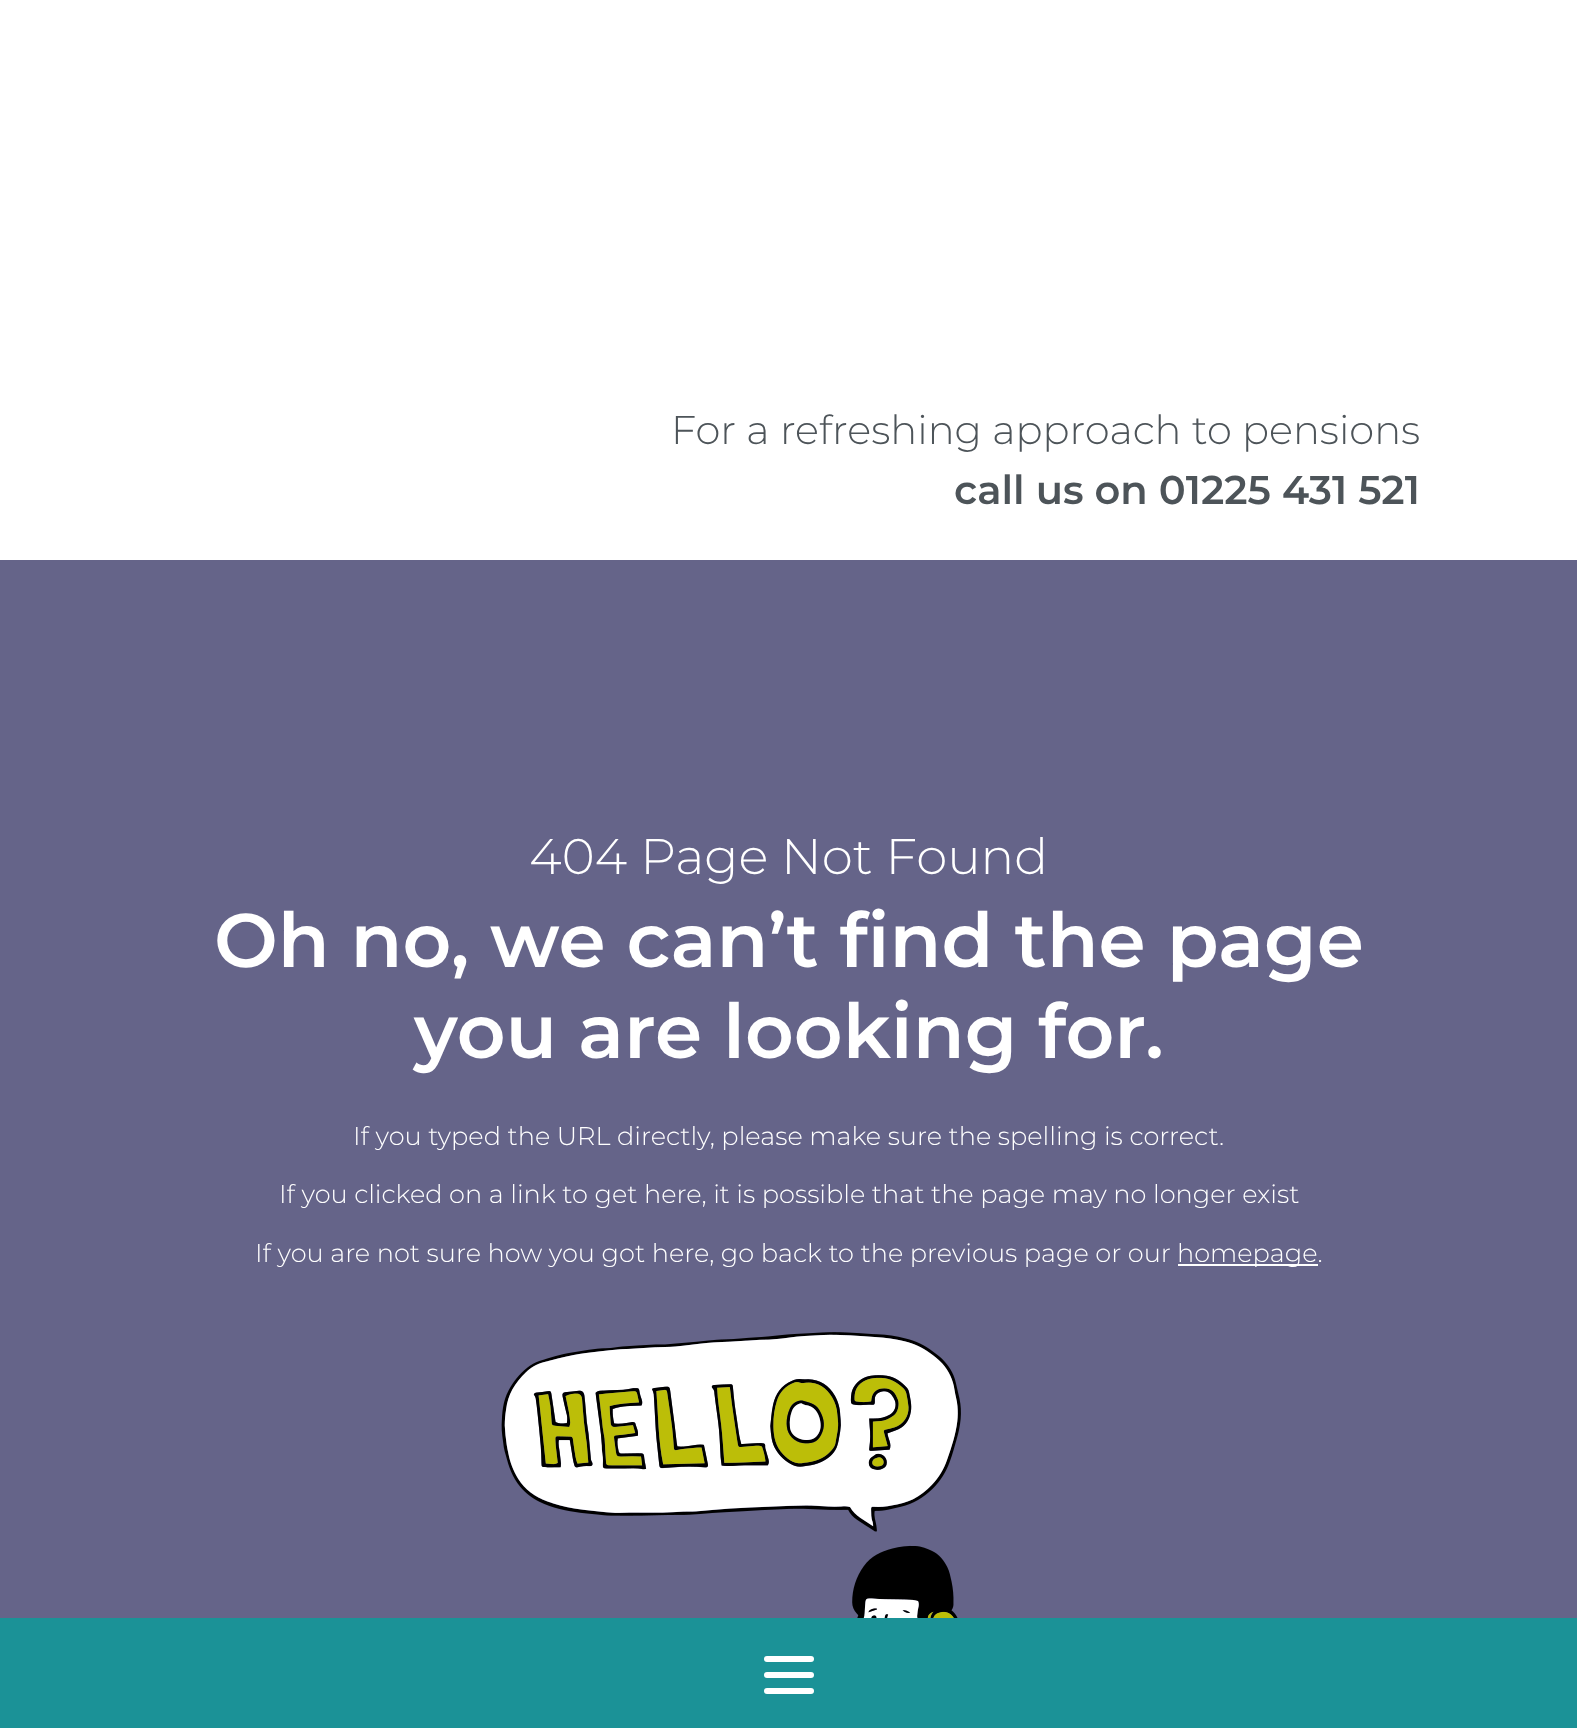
<!DOCTYPE html>
<meta charset="utf-8">
<style>body { margin: 0 } canvas { display: block }</style>
<canvas id="canvas" width="1577" height="1728"></canvas>
<img id="img1" src="img_01.png" hidden>
<script>
window.onload = function () {
	const canvas = document.getElementById("canvas");
	const ctx = canvas.getContext("2d");
	ctx.miterLimit = 4;
	ctx.fontKerning = "normal";
	function txt(s, x, y) {
		ctx.fillText(s, x, y);
	}
	function fill(x, y, w, h) {
		ctx.fillRect(x, y, w, h);
	}
	function round(x, y, w, h, r) {
		ctx.beginPath();
		ctx.roundRect(x, y, w, h, r);
		ctx.fill();
	}
	function img(id, x, y, w, h) {
		ctx.drawImage(document.getElementById(id), x, y, w, h);
	}

	ctx.fillStyle = "#FFFFFF";
	fill(0, 0, 1577, 1728);
	ctx.fillStyle = "#656489";
	fill(0, 560, 1577, 1058);
	ctx.fillStyle = "#FFFFFF";
	fill(1178, 1264, 140, 2);
	img("img1", 501, 1332, 460, 286);
	ctx.fillStyle = "#1B9297";
	fill(0, 1618, 1577, 110);
	ctx.fillStyle = "#FFFFFF";
	round(764, 1656, 50, 6, 3);
	round(764, 1672, 50, 6, 3);
	round(764, 1688, 50, 6, 3);
	ctx.font = "300 40px Montserrat";
	ctx.fillStyle = "#4D5459";
	txt("For a refreshing approach to pensions", 671, 444);
	ctx.font = "600 40px Montserrat";
	txt("call us on 01225 431 521", 954, 504);
	ctx.font = "300 50px Montserrat";
	ctx.fillStyle = "#FFFFFF";
	txt("404 Page Not Found", 529, 874);
	ctx.font = "600 75.75px Montserrat";
	txt("Oh no, we can’t find the page", 214, 967);
	txt("you are looking for.", 414, 1058);
	ctx.font = "300 25.6px Montserrat";
	txt("If you typed the URL directly, please make sure the spelling is correct.", 353, 1145);
	txt("If you clicked on a link to get here, it is possible that the page may no longer exist", 279, 1203);
	txt("If you are not sure how you got here, go back to the previous page or our", 255, 1262);
	txt("homepage.", 1177, 1262);
};
</script>
